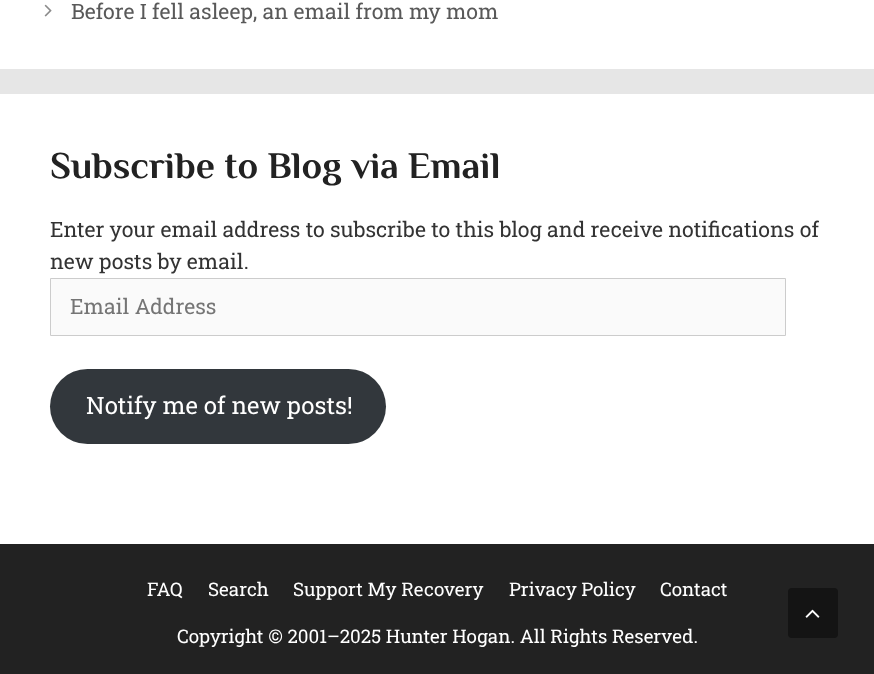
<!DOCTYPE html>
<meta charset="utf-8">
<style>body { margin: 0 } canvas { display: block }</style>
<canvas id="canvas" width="874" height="674"></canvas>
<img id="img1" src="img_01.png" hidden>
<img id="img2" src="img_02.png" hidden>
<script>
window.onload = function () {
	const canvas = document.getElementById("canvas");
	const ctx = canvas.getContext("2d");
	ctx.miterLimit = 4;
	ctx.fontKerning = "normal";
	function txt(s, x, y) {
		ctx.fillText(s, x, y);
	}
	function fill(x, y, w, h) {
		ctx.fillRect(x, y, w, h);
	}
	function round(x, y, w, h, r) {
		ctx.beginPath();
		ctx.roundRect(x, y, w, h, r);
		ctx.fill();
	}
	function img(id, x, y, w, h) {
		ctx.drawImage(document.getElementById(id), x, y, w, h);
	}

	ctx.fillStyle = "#E6E6E6";
	fill(0, 0, 874, 674);
	ctx.fillStyle = "#FFFFFF";
	fill(0, 0, 874, 69);
	img("img1", 44, 4, 8, 13);
	fill(0, 94, 874, 450);
	ctx.fillStyle = "#FAFAFA";
	ctx.beginPath();
	ctx.rect(50.5, 278.5, 735, 57);
	ctx.fill();
	ctx.strokeStyle = "#CCCCCC";
	ctx.stroke();
	ctx.fillStyle = "#32373C";
	round(50, 369, 336, 75, 37.5);
	ctx.fillStyle = "#222222";
	fill(0, 544, 874, 130);
	ctx.fillStyle = "#141414";
	round(788, 588, 50, 50, 4);
	img("img2", 805, 609, 15, 9);
	ctx.font = "21.25px Roboto Slab";
	ctx.fillStyle = "#595959";
	txt("Before I fell asleep, an email from my mom", 71, 19);
	ctx.font = "bold 37.5px Philosopher";
	ctx.fillStyle = "#222222";
	txt("Subscribe to Blog via Email", 50, 178);
	ctx.font = "21.25px Roboto Slab";
	ctx.fillStyle = "#333333";
	txt("Enter your email address to subscribe to this blog and receive notifications of", 50, 237);
	txt("new posts by email.", 50, 269);
	ctx.fillStyle = "#757575";
	txt("Email Address", 70, 314);
	ctx.font = "24px Roboto Slab";
	ctx.fillStyle = "#FFFFFF";
	txt("Notify me of new posts!", 86, 414);
	ctx.font = "18.75px Roboto Slab";
	txt("FAQ", 147, 596);
	txt("Search", 208, 596);
	txt("Support My Recovery", 293, 596);
	txt("Privacy Policy", 509, 596);
	txt("Contact", 660, 596);
	txt("Copyright © 2001–2025 Hunter Hogan. All Rights Reserved.", 177, 643);
};
</script>
